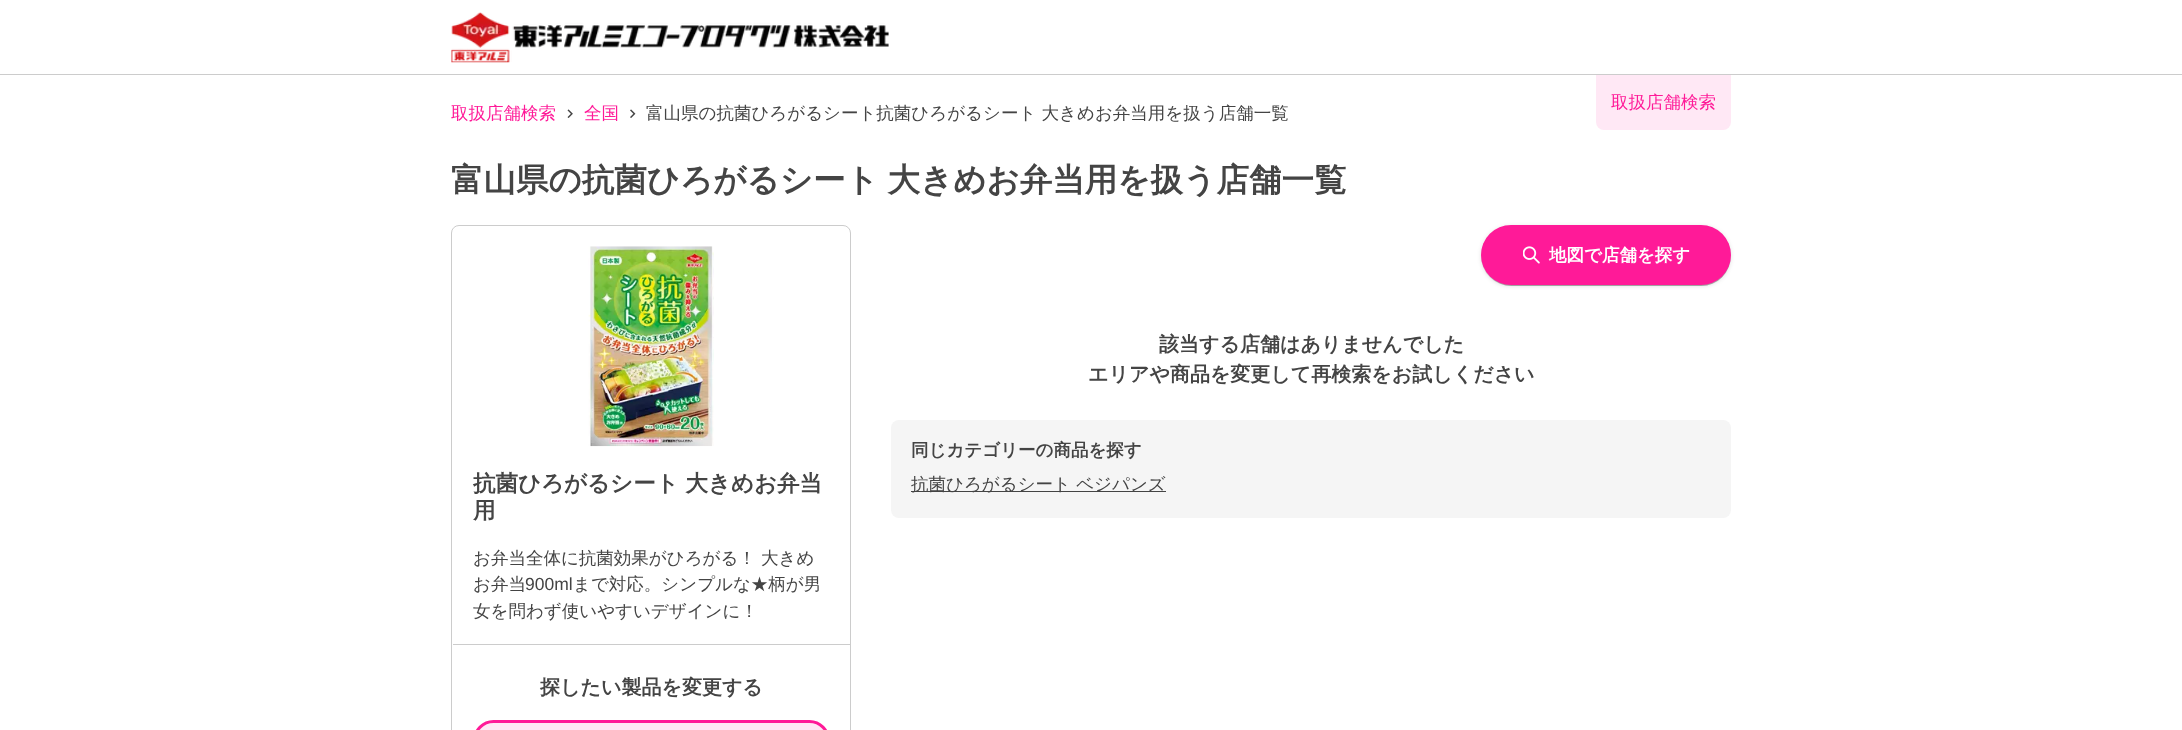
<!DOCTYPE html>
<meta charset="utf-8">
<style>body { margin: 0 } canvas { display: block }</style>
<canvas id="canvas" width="2182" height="730"></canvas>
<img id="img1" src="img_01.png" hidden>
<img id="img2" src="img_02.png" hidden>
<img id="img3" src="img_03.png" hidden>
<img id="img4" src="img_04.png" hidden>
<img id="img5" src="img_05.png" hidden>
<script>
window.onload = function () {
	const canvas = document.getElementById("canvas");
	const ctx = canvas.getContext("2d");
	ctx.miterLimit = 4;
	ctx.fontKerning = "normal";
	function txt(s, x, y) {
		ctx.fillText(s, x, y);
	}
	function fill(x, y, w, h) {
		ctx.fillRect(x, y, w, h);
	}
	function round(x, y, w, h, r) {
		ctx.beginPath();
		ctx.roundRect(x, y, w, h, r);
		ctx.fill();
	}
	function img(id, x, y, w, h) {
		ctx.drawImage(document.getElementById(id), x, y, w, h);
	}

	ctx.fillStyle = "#FFFFFF";
	fill(0, 0, 2182, 730);
	ctx.fillStyle = "#CCCCCC";
	fill(0, 74, 2182, 1);
	img("img1", 451, 12, 438, 51);
	ctx.fillStyle = "#FFE8F5";
	ctx.beginPath();
	ctx.roundRect(1596, 75, 135, 55, [0, 0, 8, 8]);
	ctx.fill();
	img("img2", 567, 109, 6, 9);
	img("img3", 630, 109, 6, 9);
	ctx.fillStyle = "rgba(0, 0, 0, 0.12)";
	ctx.filter = "blur(2px)";
	ctx.beginPath();
	ctx.roundRect(1481, 226, 250, 60, 30);
	ctx.fill();
	ctx.filter = "none";
	ctx.fillStyle = "rgba(0, 0, 0, 0.14)";
	ctx.filter = "blur(0.5px)";
	ctx.beginPath();
	ctx.roundRect(1481, 226, 250, 60, 30);
	ctx.fill();
	ctx.filter = "none";
	ctx.fillStyle = "rgba(0, 0, 0, 0.2)";
	ctx.filter = "blur(0.5px)";
	ctx.beginPath();
	ctx.roundRect(1483, 229, 247, 57, 28.5);
	ctx.fill();
	ctx.filter = "none";
	ctx.fillStyle = "#FF1A98";
	round(1481, 225, 250, 60, 30);
	img("img4", 1523, 246, 17, 18);
	ctx.fillStyle = "#F5F5F5";
	round(891, 420, 840, 98, 8);
	ctx.fillStyle = "#444444";
	fill(911, 491, 255, 1);
	ctx.beginPath();
	ctx.roundRect(451.5, 225.5, 399, 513, 7.5);
	ctx.strokeStyle = "#CCCCCC";
	ctx.stroke();
	img("img5", 588, 246, 126, 201);
	ctx.fillStyle = "#CCCCCC";
	fill(453, 644, 397, 1);
	ctx.fillStyle = "#FFE8F5";
	ctx.beginPath();
	ctx.roundRect(474.5, 721.5, 354, 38, 26.5);
	ctx.fill();
	ctx.strokeStyle = "#FF1A98";
	ctx.lineWidth = 3;
	ctx.stroke();
	ctx.font = "500 17.5px WenQuanYi Zen Hei";
	ctx.fillStyle = "#FF1A98";
	txt("取扱店舗検索", 1611, 108);
	txt("取扱店舗検索", 451, 119);
	txt("全国", 584, 119);
	ctx.fillStyle = "#444444";
	txt("富山県の抗菌ひろがるシート抗菌ひろがるシート 大きめお弁当用を扱う店舗一覧", 646, 119);
	ctx.wordSpacing = "-1px";
	ctx.font = "bold 32.5px WenQuanYi Zen Hei";
	txt("富山県の抗菌ひろがるシート 大きめお弁当用を扱う店舗一覧", 451, 191);
	ctx.wordSpacing = "0px";
	ctx.font = "bold 17.5px WenQuanYi Zen Hei";
	ctx.fillStyle = "#FFFFFF";
	txt("地図で店舗を探す", 1549, 261);
	ctx.font = "bold 20px WenQuanYi Zen Hei";
	ctx.fillStyle = "#444444";
	txt("該当する店舗はありませんでした", 1159, 351);
	txt("エリアや商品を変更して再検索をお試しください", 1088, 381);
	ctx.font = "bold 17.5px WenQuanYi Zen Hei";
	txt("同じカテゴリーの商品を探す", 911, 456);
	ctx.font = "500 17.5px WenQuanYi Zen Hei";
	txt("抗菌ひろがるシート ベジパンズ", 911, 490);
	ctx.font = "bold 22.5px WenQuanYi Zen Hei";
	txt("抗菌ひろがるシート 大きめお弁当", 473, 491);
	txt("用", 473, 518);
	ctx.font = "500 17.5px WenQuanYi Zen Hei";
	txt("お弁当全体に抗菌効果がひろがる！ 大きめ", 473, 564);
	txt("お弁当", 473, 590);
	ctx.font = "17.5px Liberation Sans";
	txt("900ml", 525, 590);
	ctx.font = "500 17.5px WenQuanYi Zen Hei";
	txt("まで対応。シンプルな★柄が男", 573, 590);
	txt("女を問わず使いやすいデザインに！", 473, 617);
	ctx.font = "bold 20px WenQuanYi Zen Hei";
	txt("探したい製品を変更する", 540, 694);
};
</script>
